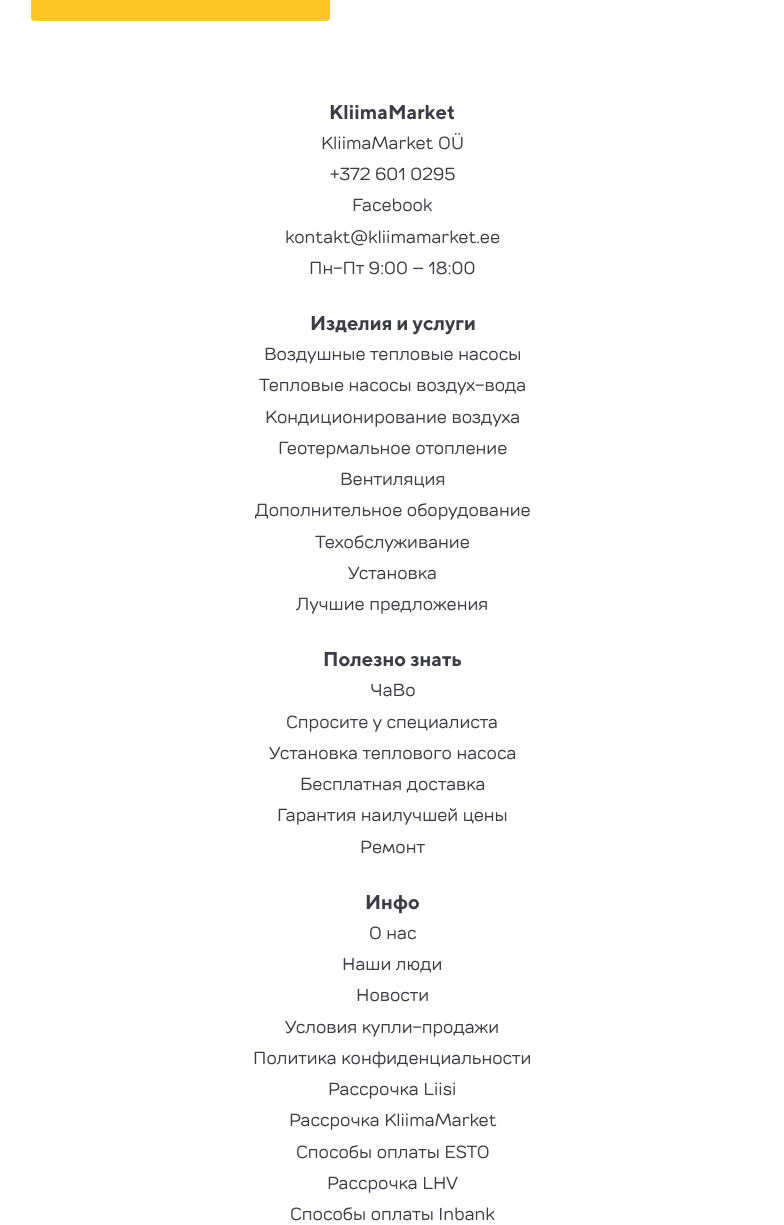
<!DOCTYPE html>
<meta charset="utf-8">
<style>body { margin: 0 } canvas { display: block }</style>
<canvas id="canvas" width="784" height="1225"></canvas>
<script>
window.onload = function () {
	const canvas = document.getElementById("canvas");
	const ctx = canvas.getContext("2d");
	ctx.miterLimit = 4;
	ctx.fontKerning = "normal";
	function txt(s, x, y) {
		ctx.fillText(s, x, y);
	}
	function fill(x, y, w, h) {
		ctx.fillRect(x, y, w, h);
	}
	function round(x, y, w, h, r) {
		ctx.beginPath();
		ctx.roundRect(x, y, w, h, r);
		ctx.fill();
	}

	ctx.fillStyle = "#FFFFFF";
	fill(0, 0, 784, 1225);
	ctx.fillStyle = "#FEC524";
	round(31, -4, 299, 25, 4);
	ctx.font = "bold 20px 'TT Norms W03'";
	ctx.fillStyle = "#3C3C46";
	txt("KliimaMarket", 329, 119);
	ctx.font = "17.5px 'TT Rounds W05'";
	txt("KliimaMarket OÜ", 321, 149);
	txt("+372 601 0295", 330, 180);
	txt("Facebook", 352, 211);
	txt("kontakt@kliimamarket.ee", 285, 243);
	txt("Пн-Пт 9:00 – 18:00", 309, 274);
	ctx.font = "bold 20px 'TT Norms W03'";
	txt("Изделия и услуги", 310, 330);
	ctx.font = "17.5px 'TT Rounds W05'";
	txt("Воздушные тепловые насосы", 264, 360);
	txt("Тепловые насосы воздух-вода", 259, 391);
	txt("Кондиционирование воздуха", 265, 423);
	txt("Геотермальное отопление", 278, 454);
	txt("Вентиляция", 340, 485);
	txt("Дополнительное оборудование", 255, 516);
	txt("Техобслуживание", 315, 548);
	txt("Установка", 348, 579);
	txt("Лучшие предложения", 296, 610);
	ctx.font = "bold 20px 'TT Norms W03'";
	txt("Полезно знать", 323, 666);
	ctx.font = "17.5px 'TT Rounds W05'";
	txt("ЧаВо", 370, 696);
	txt("Спросите у специалиста", 286, 728);
	txt("Установка теплового насоса", 269, 759);
	txt("Бесплатная доставка", 300, 790);
	txt("Гарантия наилучшей цены", 277, 821);
	txt("Ремонт", 360, 853);
	ctx.font = "bold 20px 'TT Norms W03'";
	txt("Инфо", 365, 909);
	ctx.font = "17.5px 'TT Rounds W05'";
	txt("О нас", 369, 939);
	txt("Наши люди", 342, 970);
	txt("Новости", 356, 1001);
	txt("Условия купли-продажи", 285, 1033);
	txt("Политика конфиденциальности", 253, 1064);
	txt("Рассрочка Liisi", 328, 1095);
	txt("Рассрочка KliimaMarket", 289, 1126);
	txt("Способы оплаты ESTO", 296, 1158);
	txt("Рассрочка LHV", 327, 1189);
	txt("Способы оплаты Inbank", 290, 1220);
};
</script>
